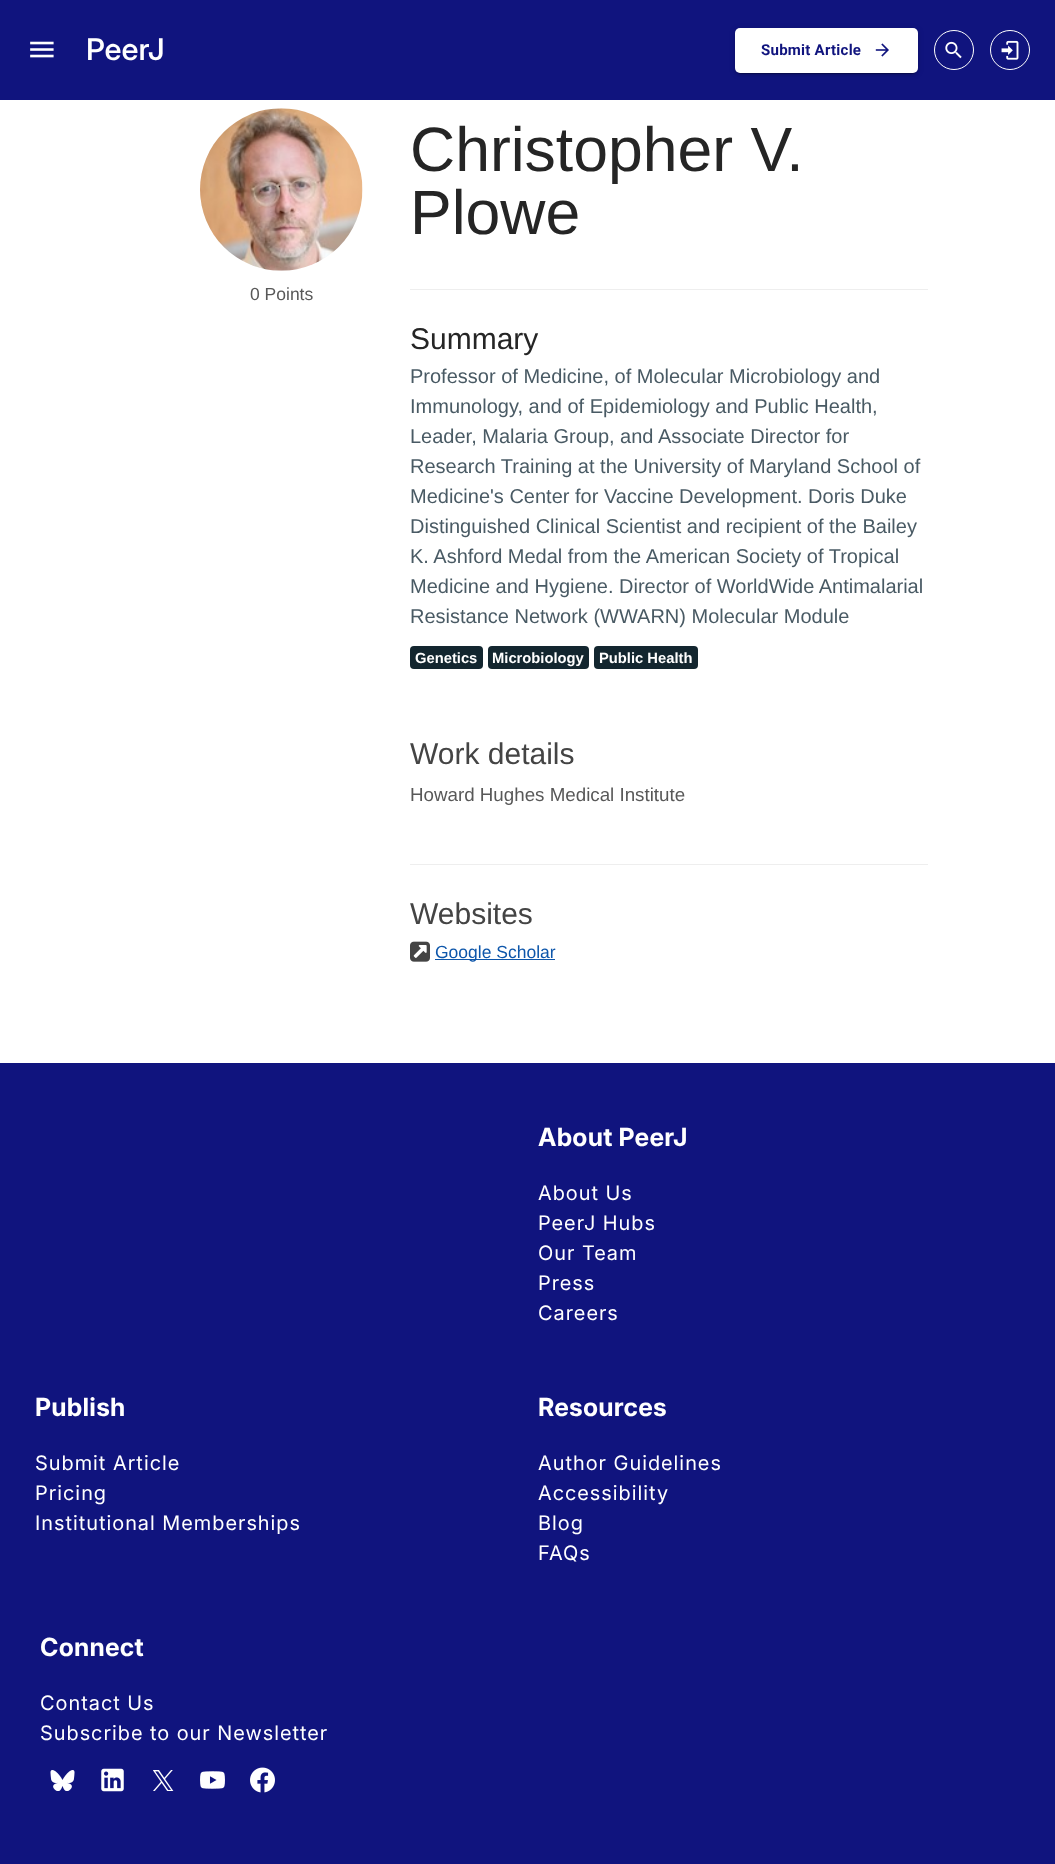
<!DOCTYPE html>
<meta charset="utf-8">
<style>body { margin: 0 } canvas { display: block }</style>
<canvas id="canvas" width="1055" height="1864"></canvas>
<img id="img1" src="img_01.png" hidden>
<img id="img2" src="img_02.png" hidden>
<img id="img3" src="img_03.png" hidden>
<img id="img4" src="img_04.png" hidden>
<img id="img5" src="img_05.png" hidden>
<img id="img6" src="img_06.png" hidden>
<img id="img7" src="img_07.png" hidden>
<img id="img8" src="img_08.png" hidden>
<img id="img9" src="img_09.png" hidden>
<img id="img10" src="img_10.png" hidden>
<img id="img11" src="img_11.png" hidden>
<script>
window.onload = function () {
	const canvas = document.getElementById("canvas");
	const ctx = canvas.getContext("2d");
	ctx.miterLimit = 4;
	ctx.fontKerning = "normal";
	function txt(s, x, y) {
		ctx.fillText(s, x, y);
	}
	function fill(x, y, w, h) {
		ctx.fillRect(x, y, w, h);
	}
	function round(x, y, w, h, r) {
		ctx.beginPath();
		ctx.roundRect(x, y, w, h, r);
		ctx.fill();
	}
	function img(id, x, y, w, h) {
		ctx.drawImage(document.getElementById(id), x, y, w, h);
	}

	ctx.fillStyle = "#FFFFFF";
	fill(0, 0, 1055, 1864);
	ctx.fillStyle = "#10147E";
	fill(0, 0, 1055, 100);
	img("img1", 30, 41, 24, 17);
	ctx.fillStyle = "rgba(0, 0, 0, 0.12)";
	ctx.filter = "blur(3px)";
	ctx.beginPath();
	ctx.roundRect(735, 29, 183, 45, 5);
	ctx.fill();
	ctx.filter = "none";
	ctx.fillStyle = "rgba(0, 0, 0, 0.14)";
	ctx.filter = "blur(1px)";
	ctx.beginPath();
	ctx.roundRect(735, 30, 183, 45, 5);
	ctx.fill();
	ctx.filter = "none";
	ctx.fillStyle = "rgba(0, 0, 0, 0.2)";
	ctx.filter = "blur(0.5px)";
	ctx.beginPath();
	ctx.roundRect(738, 34, 177, 40, 2.5);
	ctx.fill();
	ctx.filter = "none";
	ctx.fillStyle = "#FFFFFF";
	round(735, 28, 183, 45, 5);
	img("img2", 875, 43, 14, 14);
	ctx.beginPath();
	ctx.arc(954, 50, 19.5, 0, Math.PI * 2);
	ctx.strokeStyle = "#FFFFFF";
	ctx.stroke();
	img("img3", 945, 41, 17, 18);
	ctx.beginPath();
	ctx.arc(1010, 50, 19.5, 0, Math.PI * 2);
	ctx.stroke();
	img("img4", 1001, 40, 18, 20);
	ctx.fillStyle = "#10147E";
	fill(0, 1063, 1055, 801);
	img("img5", 50, 1770, 25, 21);
	img("img6", 101, 1768, 23, 24);
	img("img7", 153, 1770, 21, 21);
	img("img8", 200, 1771, 25, 18);
	img("img9", 250, 1767, 25, 26);
	img("img10", 200, 108, 163, 163);
	ctx.fillStyle = "#EEEEEE";
	fill(410, 289, 518, 1);
	ctx.fillStyle = "#13262F";
	round(410, 646, 73, 23, 4);
	round(488, 646, 101, 23, 4);
	round(594, 646, 104, 23, 4);
	ctx.fillStyle = "#EEEEEE";
	fill(410, 864, 518, 1);
	img("img11", 410, 941, 20, 21);
	ctx.fillStyle = "#0D56AA";
	fill(435, 959, 120, 1);
	ctx.font = "500 30px Inter";
	ctx.fillStyle = "#FFFFFF";
	txt("PeerJ", 86, 60);
	ctx.letterSpacing = "0.25px";
	ctx.font = "bold 15px Roboto";
	ctx.fillStyle = "#10147E";
	txt("Submit Article", 761, 55);
	ctx.font = "bold 25px Inter";
	ctx.fillStyle = "#FFFFFF";
	txt("About PeerJ", 538, 1146);
	ctx.letterSpacing = "1px";
	ctx.font = "20px Inter";
	txt("About Us", 538, 1200);
	txt("PeerJ Hubs", 538, 1230);
	txt("Our Team", 538, 1260);
	txt("Press", 538, 1290);
	txt("Careers", 538, 1320);
	ctx.letterSpacing = "0.25px";
	ctx.font = "bold 25px Inter";
	txt("Publish", 35, 1416);
	ctx.letterSpacing = "1px";
	ctx.font = "20px Inter";
	txt("Submit Article", 35, 1470);
	txt("Pricing", 35, 1500);
	txt("Institutional Memberships", 35, 1530);
	ctx.letterSpacing = "0.25px";
	ctx.font = "bold 25px Inter";
	txt("Resources", 538, 1416);
	ctx.letterSpacing = "1px";
	ctx.font = "20px Inter";
	txt("Author Guidelines", 538, 1470);
	txt("Accessibility", 538, 1500);
	txt("Blog", 538, 1530);
	txt("FAQs", 538, 1560);
	ctx.letterSpacing = "0.25px";
	ctx.font = "bold 25px Inter";
	txt("Connect", 40, 1656);
	ctx.letterSpacing = "1px";
	ctx.font = "20px Inter";
	txt("Contact Us", 40, 1710);
	txt("Subscribe to our Newsletter", 40, 1740);
	ctx.letterSpacing = "0px";
	ctx.font = "17.5px Liberation Sans";
	ctx.fillStyle = "#585858";
	txt("0 Points", 250, 300);
	ctx.font = "62.5px Liberation Sans";
	ctx.fillStyle = "#252525";
	txt("Christopher V.", 410, 171);
	txt("Plowe", 410, 234);
	ctx.font = "30px Liberation Sans";
	txt("Summary", 410, 349);
	ctx.font = "20px Liberation Sans";
	ctx.fillStyle = "#495A64";
	txt("Professor of Medicine, of Molecular Microbiology and", 410, 383);
	txt("Immunology, and of Epidemiology and Public Health,", 410, 413);
	txt("Leader, Malaria Group, and Associate Director for", 410, 443);
	txt("Research Training at the University of Maryland School of", 410, 473);
	txt("Medicine's Center for Vaccine Development. Doris Duke", 410, 503);
	txt("Distinguished Clinical Scientist and recipient of the Bailey", 410, 533);
	txt("K. Ashford Medal from the American Society of Tropical", 410, 563);
	txt("Medicine and Hygiene. Director of WorldWide Antimalarial", 410, 593);
	txt("Resistance Network (WWARN) Molecular Module", 410, 623);
	ctx.font = "bold 14.75px Liberation Sans";
	ctx.fillStyle = "#FFFFFF";
	txt("Genetics", 415, 663);
	txt("Microbiology", 492, 663);
	txt("Public Health", 599, 663);
	ctx.font = "30px Liberation Sans";
	ctx.fillStyle = "#444444";
	txt("Work details", 410, 764);
	ctx.font = "18.75px Liberation Sans";
	ctx.fillStyle = "#585858";
	txt("Howard Hughes Medical Institute", 410, 801);
	ctx.font = "30px Liberation Sans";
	ctx.fillStyle = "#444444";
	txt("Websites", 410, 924);
	ctx.font = "17.5px Liberation Sans";
	ctx.fillStyle = "#0D56AA";
	txt("Google Scholar", 435, 958);
};
</script>
